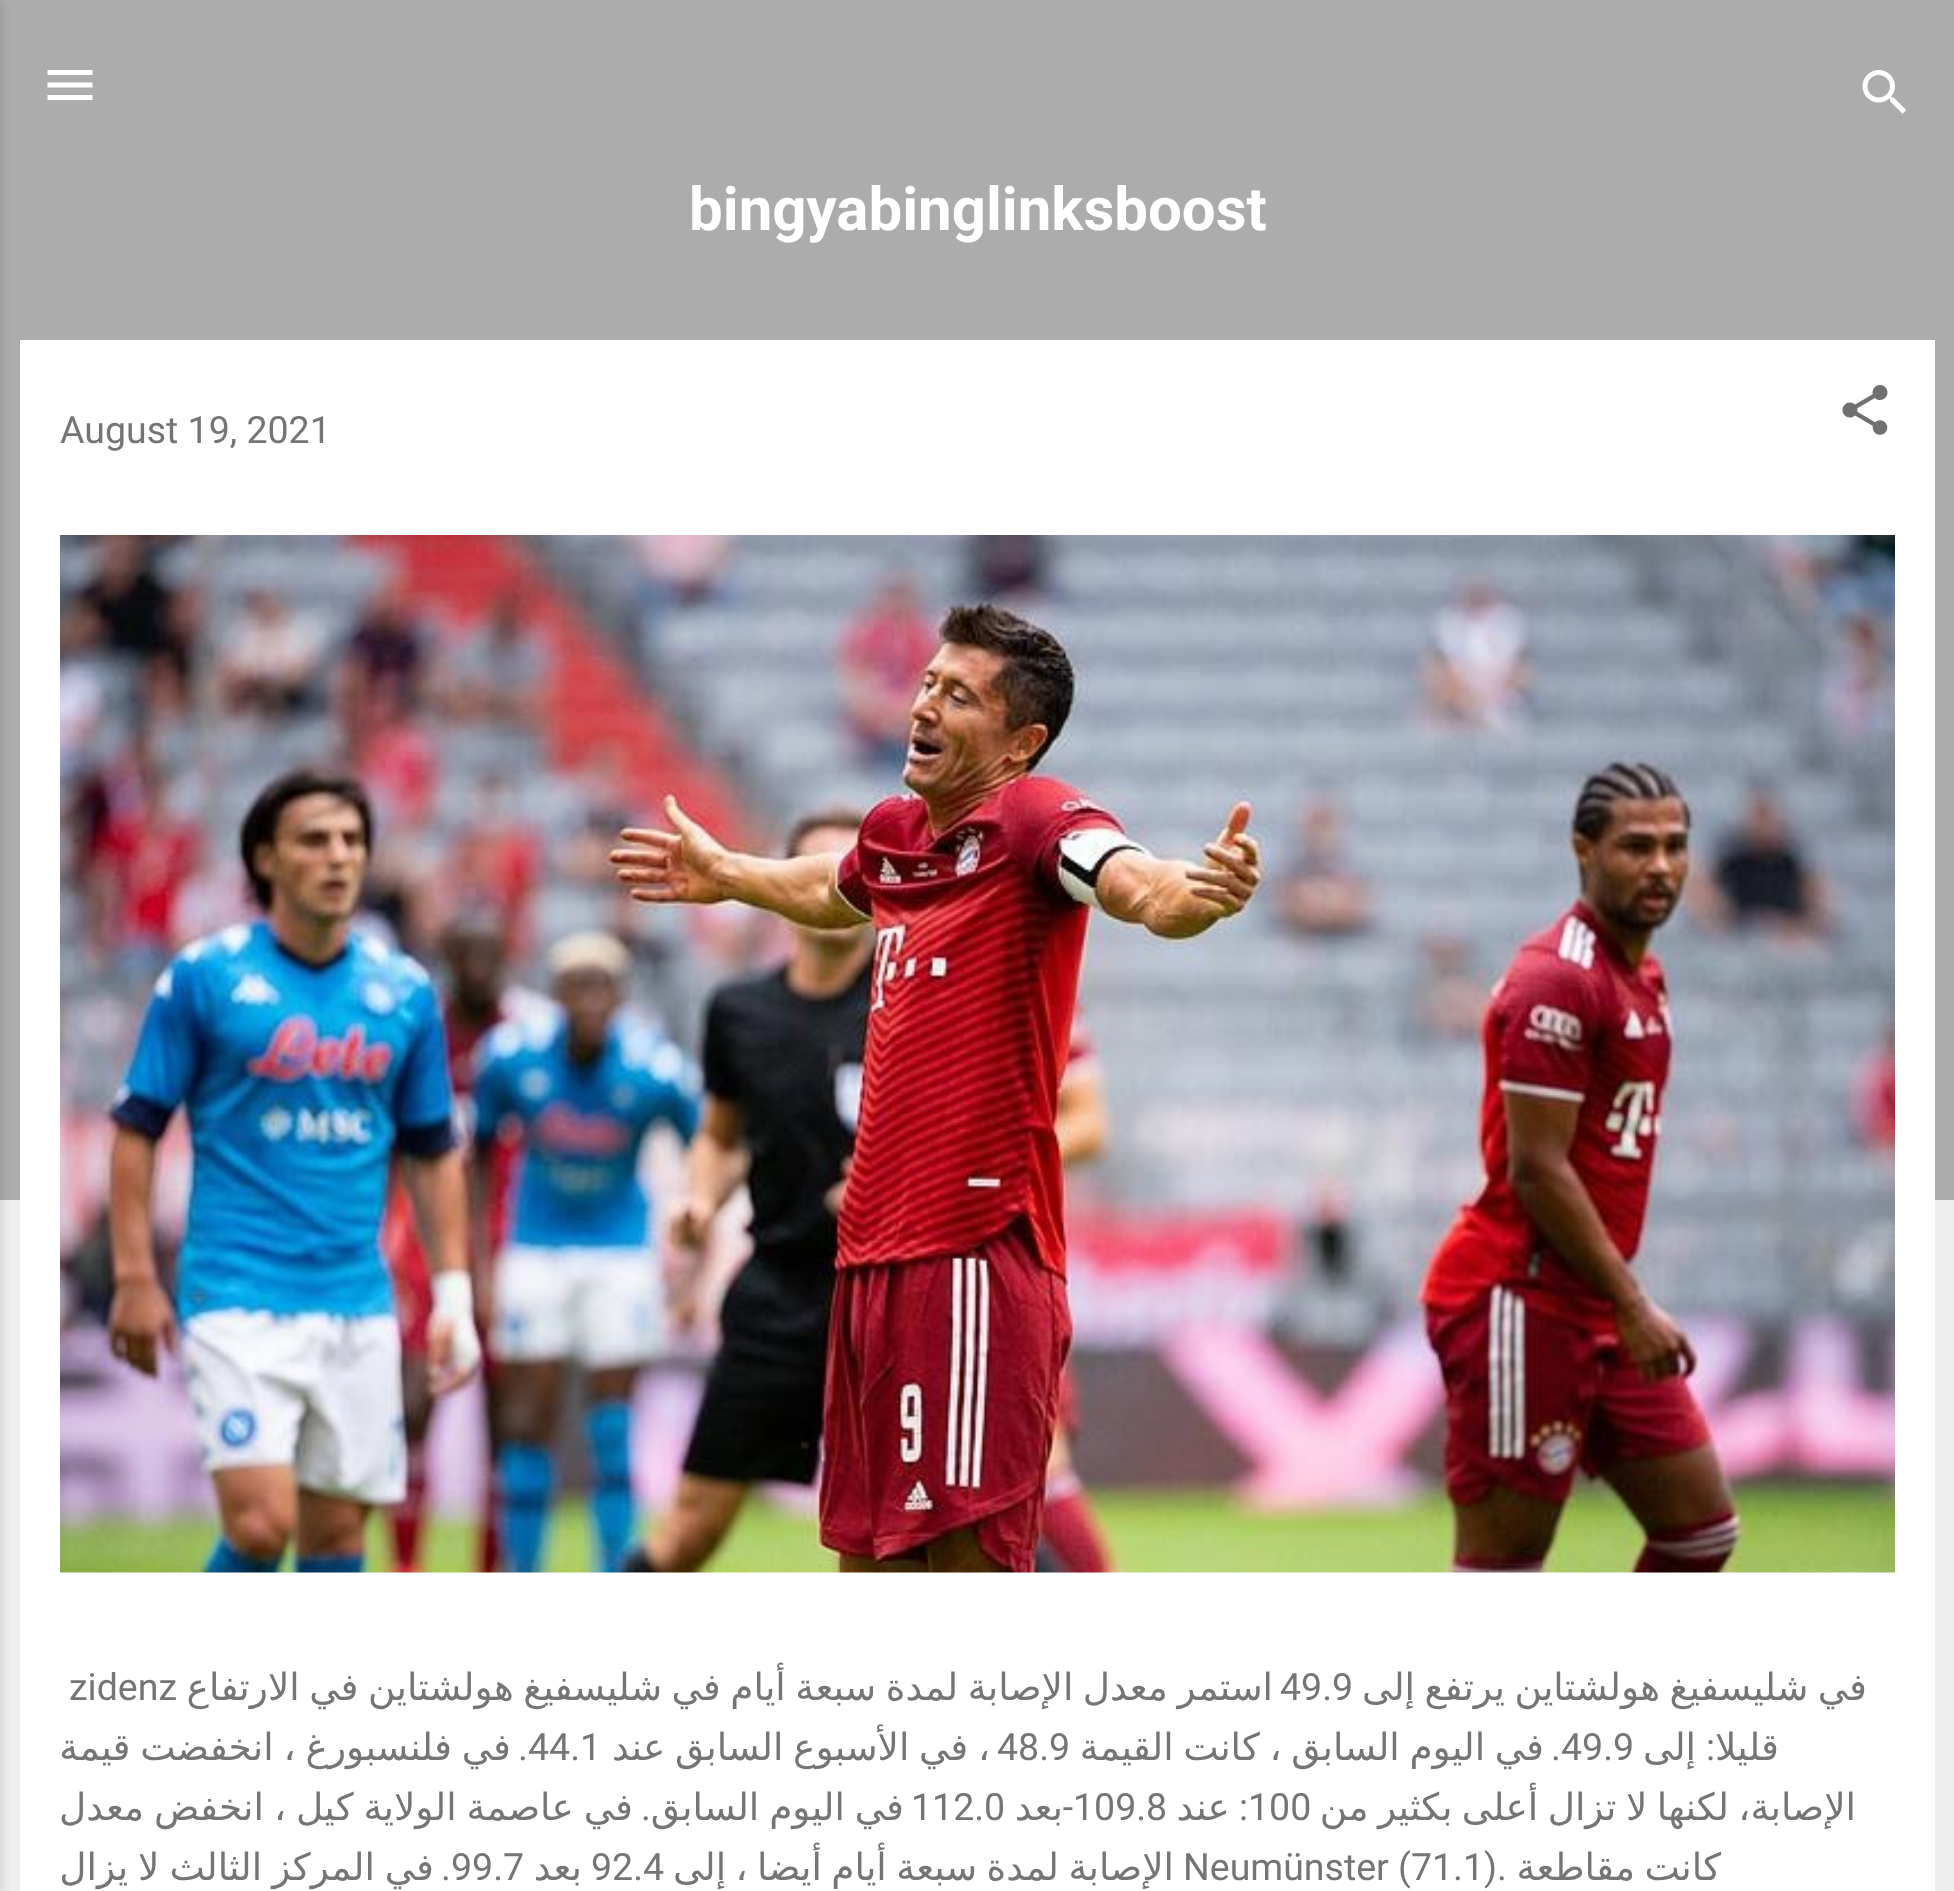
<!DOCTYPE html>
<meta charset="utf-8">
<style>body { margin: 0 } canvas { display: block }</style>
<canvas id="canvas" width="1954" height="1891"></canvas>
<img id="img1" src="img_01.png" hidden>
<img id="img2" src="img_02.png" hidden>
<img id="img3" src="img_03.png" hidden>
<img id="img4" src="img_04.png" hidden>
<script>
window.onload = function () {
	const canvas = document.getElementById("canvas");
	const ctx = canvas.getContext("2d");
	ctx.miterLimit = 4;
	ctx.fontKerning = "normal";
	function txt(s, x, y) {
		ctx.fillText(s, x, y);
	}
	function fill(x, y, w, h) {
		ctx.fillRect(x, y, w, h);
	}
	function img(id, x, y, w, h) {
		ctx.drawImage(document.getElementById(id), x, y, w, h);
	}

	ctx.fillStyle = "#EEEEEE";
	fill(0, 0, 1954, 1891);
	ctx.fillStyle = "#ACACAC";
	fill(0, 0, 1954, 1200);
	img("img1", 1862, 70, 44, 44);
	img("img2", 47, 70, 46, 30);
	ctx.fillStyle = "#FFFFFF";
	fill(20, 340, 1915, 1551);
	img("img3", 1842, 385, 46, 50);
	img("img4", 60, 535, 1835, 1038);
	ctx.fillStyle = "rgba(0, 0, 0, 0.1)";
	ctx.filter = "blur(4px)";
	ctx.beginPath();
	ctx.rect(-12, 3, 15, 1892);
	ctx.fill();
	ctx.filter = "none";
	ctx.font = "bold 60px Roboto";
	ctx.fillStyle = "#FFFFFF";
	txt("bingyabinglinksboost", 689, 230);
	ctx.font = "37.5px Roboto";
	ctx.fillStyle = "#757575";
	txt("August 19, 2021", 60, 443);
	ctx.wordSpacing = "-2.5px";
	ctx.direction = "rtl";
	ctx.font = "37.5px DejaVu Sans";
	txt("في شليسفيغ هولشتاين يرتفع إلى", 1867, 1700);
	ctx.wordSpacing = "-2.4px";
	txt("استمر معدل الإصابة لمدة سبعة أيام في شليسفيغ هولشتاين في الارتفاع", 1273, 1700);
	ctx.wordSpacing = "0px";
	ctx.direction = "ltr";
	ctx.font = "37.5px Roboto";
	txt("49.9", 1280, 1700);
	txt("zidenz", 69, 1700);
	ctx.direction = "rtl";
	ctx.font = "37.5px DejaVu Sans";
	txt("قليلا", 1779, 1760);
	ctx.font = "37.5px Roboto";
	txt(":", 1715, 1760);
	ctx.font = "37.5px DejaVu Sans";
	txt("إلى", 1696, 1760);
	ctx.direction = "ltr";
	ctx.font = "37.5px Roboto";
	txt("49.9", 1561, 1760);
	ctx.direction = "rtl";
	txt(".", 1561, 1760);
	ctx.wordSpacing = "-2.25px";
	ctx.font = "37.5px DejaVu Sans";
	txt("في اليوم السابق ، كانت القيمة", 1544, 1760);
	ctx.wordSpacing = "0px";
	ctx.direction = "ltr";
	ctx.font = "37.5px Roboto";
	txt("48.9", 997, 1760);
	ctx.wordSpacing = "-2.25px";
	ctx.direction = "rtl";
	ctx.font = "37.5px DejaVu Sans";
	txt("، في الأسبوع السابق عند", 990, 1760);
	ctx.wordSpacing = "0px";
	ctx.direction = "ltr";
	ctx.font = "37.5px Roboto";
	txt("44.1", 528, 1760);
	ctx.direction = "rtl";
	txt(".", 528, 1760);
	ctx.wordSpacing = "-2px";
	ctx.font = "37.5px DejaVu Sans";
	txt("في فلنسبورغ ، انخفضت قيمة", 511, 1760);
	ctx.wordSpacing = "-2.5px";
	txt("الإصابة، لكنها لا تزال أعلى بكثير من", 1856, 1820);
	ctx.wordSpacing = "0px";
	ctx.direction = "ltr";
	ctx.font = "37.5px Roboto";
	txt("100", 1248, 1820);
	ctx.direction = "rtl";
	txt(":", 1248, 1820);
	ctx.font = "37.5px DejaVu Sans";
	txt("عند", 1230, 1820);
	ctx.direction = "ltr";
	ctx.font = "37.5px Roboto";
	txt("109.8", 1073, 1820);
	ctx.direction = "rtl";
	txt("-", 1073, 1820);
	ctx.font = "37.5px DejaVu Sans";
	txt("بعد", 1063, 1820);
	ctx.direction = "ltr";
	ctx.font = "37.5px Roboto";
	txt("112.0", 911, 1820);
	ctx.wordSpacing = "-2px";
	ctx.direction = "rtl";
	ctx.font = "37.5px DejaVu Sans";
	txt("في اليوم السابق", 904, 1820);
	txt("في عاصمة الولاية كيل ، انخفض معدل", 633, 1820);
	ctx.wordSpacing = "0px";
	ctx.font = "37.5px Roboto";
	txt(".", 651, 1820);
	ctx.wordSpacing = "-2.5px";
	ctx.font = "37.5px DejaVu Sans";
	txt("كانت مقاطعة", 1721, 1880);
	txt("الإصابة لمدة سبعة أيام أيضا ، إلى", 1174, 1880);
	ctx.wordSpacing = "0px";
	ctx.direction = "ltr";
	ctx.font = "37.5px Roboto";
	txt("Neumünster (71.1).", 1183, 1880);
	txt("92.4", 591, 1880);
	ctx.direction = "rtl";
	ctx.font = "37.5px DejaVu Sans";
	txt("بعد", 582, 1880);
	ctx.direction = "ltr";
	ctx.font = "37.5px Roboto";
	txt("99.7", 451, 1880);
	ctx.direction = "rtl";
	txt(".", 451, 1880);
	ctx.wordSpacing = "-2px";
	ctx.font = "37.5px DejaVu Sans";
	txt("في المركز الثالث لا يزال", 434, 1880);
};
</script>
